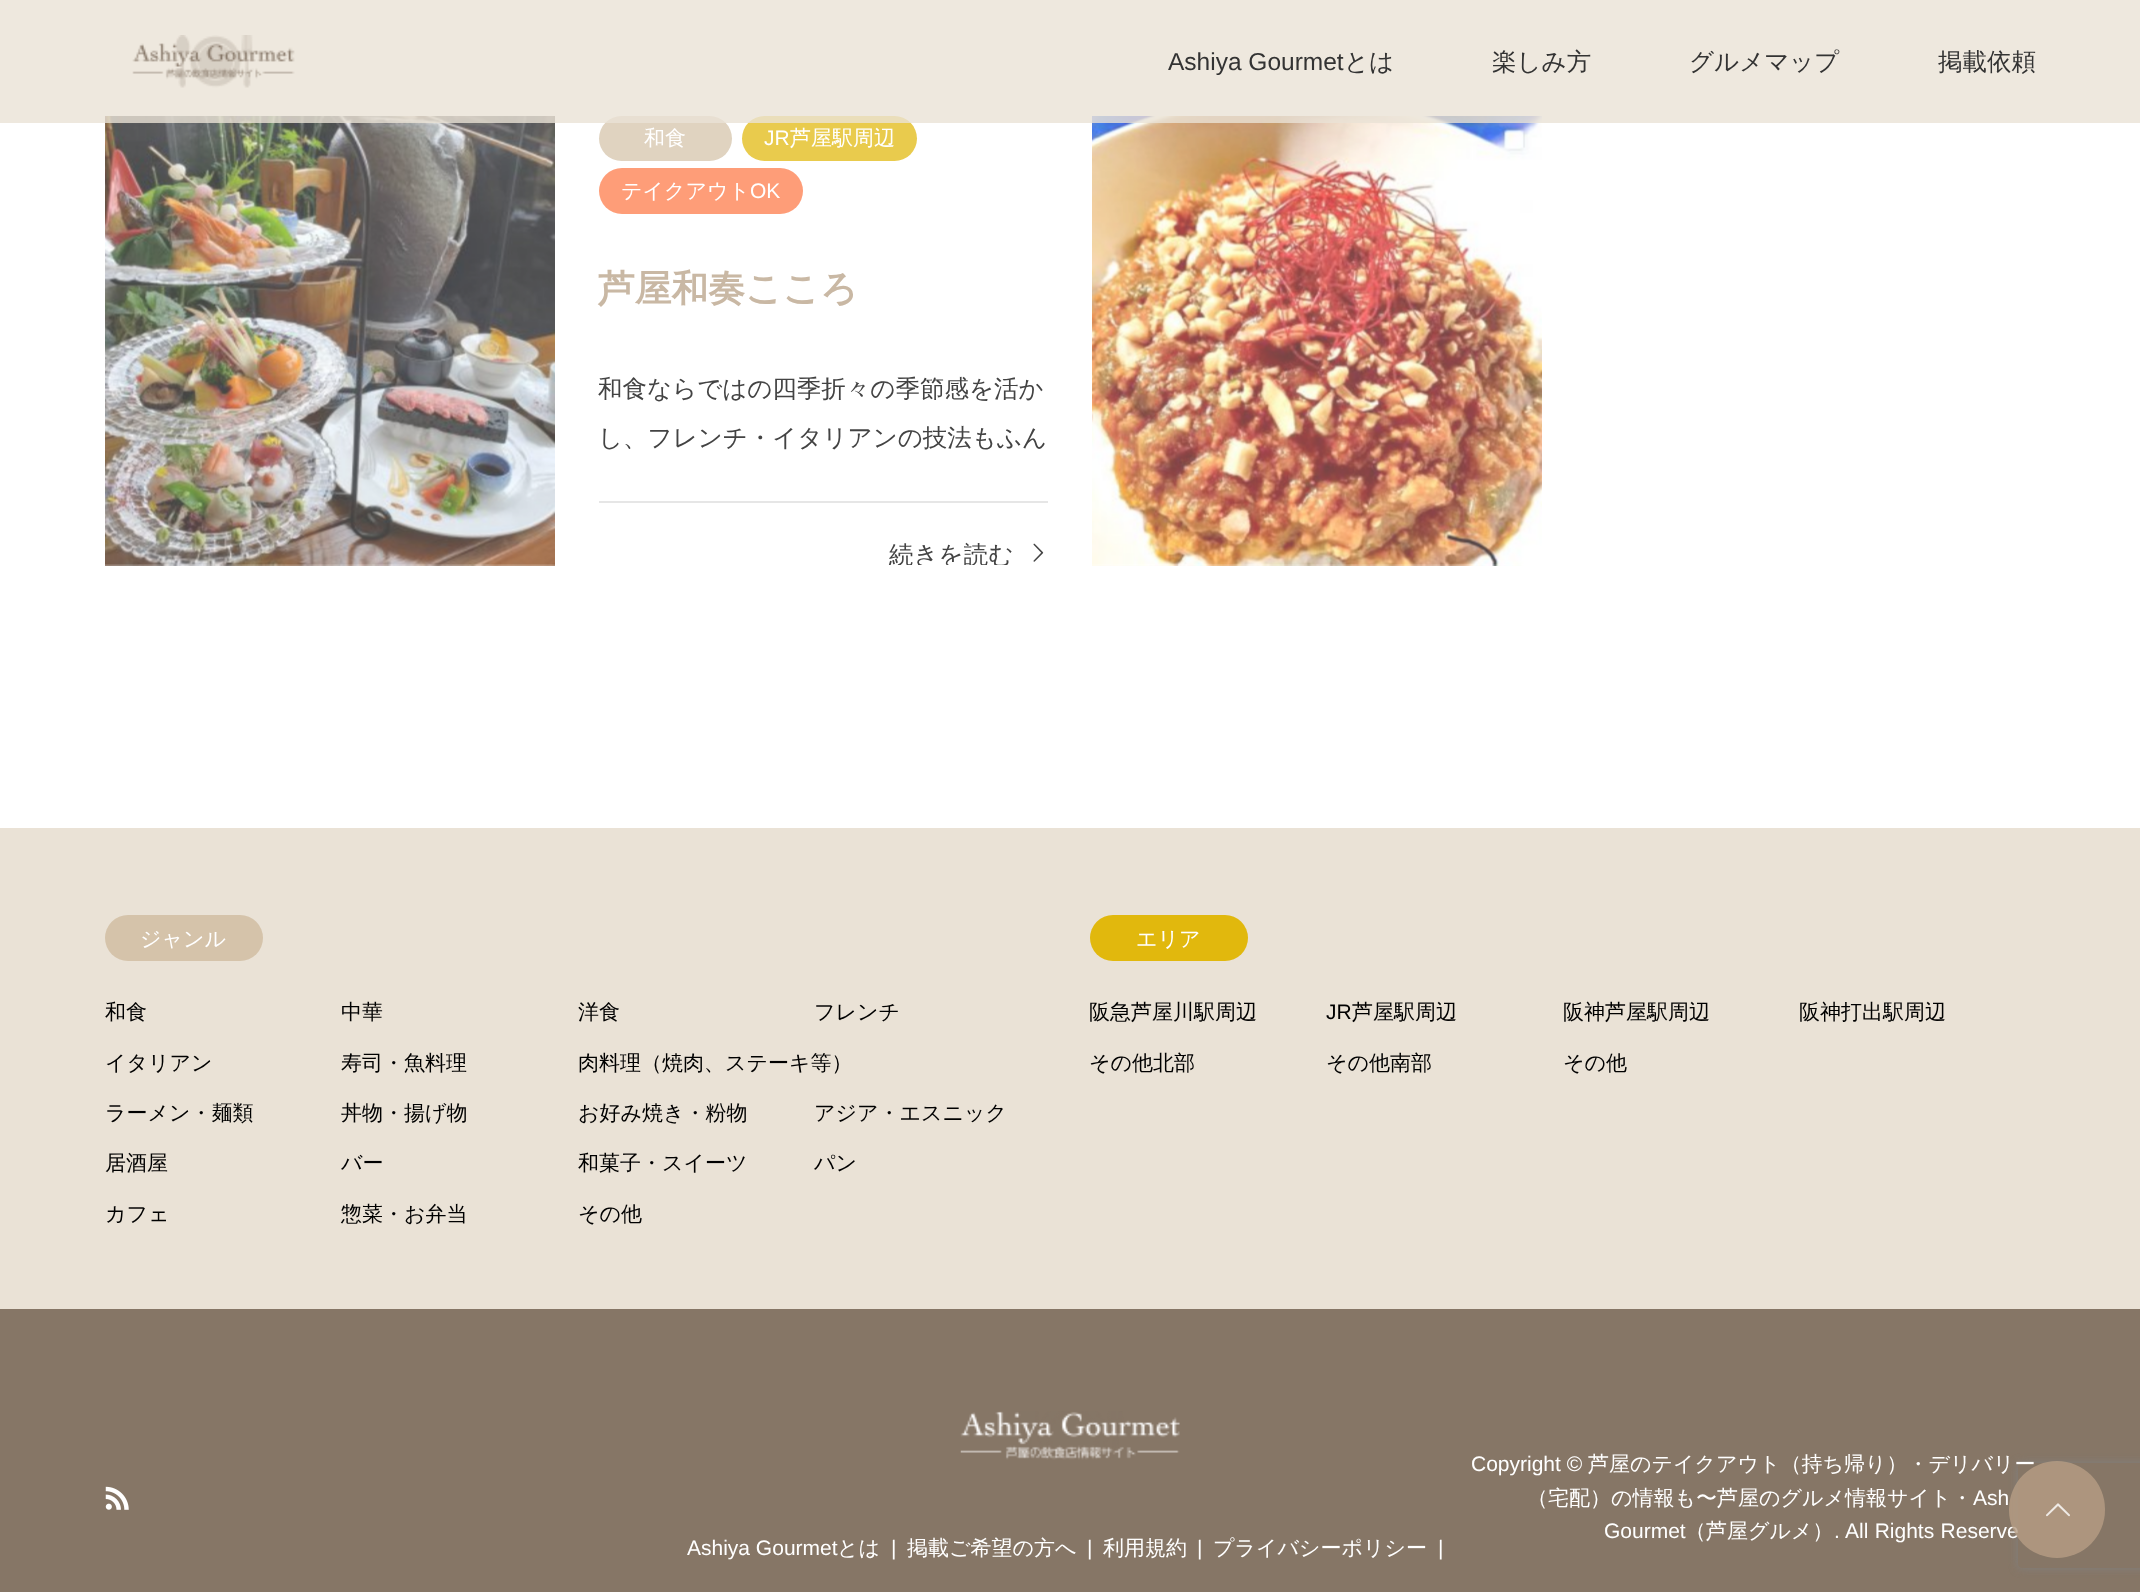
<!DOCTYPE html>
<meta charset="utf-8">
<style>body { margin: 0 } canvas { display: block }</style>
<canvas id="canvas" width="2140" height="1592"></canvas>
<img id="img1" src="img_02.png" hidden>
<img id="img2" src="img_04.png" hidden>
<img id="img3" src="img_01.png" hidden>
<img id="img4" src="img_03.png" hidden>
<img id="img5" src="img_05.png" hidden>
<img id="img6" src="img_06.png" hidden>
<img id="img7" src="img_07.png" hidden>
<script>
window.onload = function () {
	const canvas = document.getElementById("canvas");
	const ctx = canvas.getContext("2d");
	ctx.miterLimit = 4;
	ctx.fontKerning = "normal";
	function txt(s, x, y) {
		ctx.fillText(s, x, y);
	}
	function fill(x, y, w, h) {
		ctx.fillRect(x, y, w, h);
	}
	function round(x, y, w, h, r) {
		ctx.beginPath();
		ctx.roundRect(x, y, w, h, r);
		ctx.fill();
	}
	function img(id, x, y, w, h) {
		ctx.drawImage(document.getElementById(id), x, y, w, h);
	}

	ctx.fillStyle = "#FFFFFF";
	fill(0, 0, 2140, 1592);
	img("img1", 105, 116, 450, 450);
	ctx.fillStyle = "#E0D3C0";
	round(599, 116, 133, 45, 22.5);
	ctx.fillStyle = "#E9CB4D";
	round(742, 116, 175, 45, 22.5);
	img("img2", 1092, 116, 450, 450);
	ctx.fillStyle = "rgba(234, 226, 214, 0.8)";
	fill(0, 0, 2140, 123);
	img("img3", 132, 35, 163, 53);
	ctx.fillStyle = "#FE9D78";
	round(599, 168, 204, 46, 23);
	ctx.fillStyle = "#E6E6E6";
	fill(599, 501, 449, 2);
	img("img4", 1033, 543, 11, 19);
	ctx.fillStyle = "#EAE2D6";
	fill(0, 828, 2140, 481);
	ctx.fillStyle = "#D5C3AA";
	round(105, 915, 158, 46, 23);
	ctx.fillStyle = "#E1B80D";
	round(1090, 915, 158, 46, 23);
	ctx.fillStyle = "#867666";
	fill(0, 1309, 2140, 283);
	img("img5", 960, 1411, 220, 49);
	img("img6", 105, 1486, 24, 24);
	ctx.save();
	ctx.beginPath();
	ctx.moveTo(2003, 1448);
	ctx.lineTo(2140, 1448);
	ctx.lineTo(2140, 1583);
	ctx.lineTo(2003, 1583);
	ctx.closePath();
	ctx.moveTo(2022, 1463);
	ctx.lineTo(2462, 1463);
	ctx.bezierCurveTo(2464, 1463, 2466, 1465, 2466, 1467);
	ctx.lineTo(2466, 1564);
	ctx.bezierCurveTo(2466, 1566, 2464, 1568, 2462, 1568);
	ctx.lineTo(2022, 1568);
	ctx.bezierCurveTo(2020, 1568, 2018, 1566, 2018, 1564);
	ctx.lineTo(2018, 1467);
	ctx.bezierCurveTo(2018, 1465, 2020, 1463, 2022, 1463);
	ctx.closePath();
	ctx.clip("evenodd");
	ctx.fillStyle = "#808080";
	ctx.filter = "blur(4.5px)";
	ctx.beginPath();
	ctx.roundRect(2018, 1463, 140, 105, 4);
	ctx.fill();
	ctx.filter = "none";
	ctx.restore();
	ctx.font = "24.5px Liberation Sans";
	ctx.fillStyle = "#333333";
	txt("Ashiya Gourmet", 1168, 70);
	ctx.font = "500 24.5px WenQuanYi Zen Hei";
	txt("とは", 1344, 70);
	txt("楽しみ方", 1492, 70);
	txt("グルメマップ", 1689, 70);
	txt("掲載依頼", 1938, 70);
	ctx.font = "500 21px WenQuanYi Zen Hei";
	ctx.fillStyle = "#FFFFFF";
	txt("和食", 644, 145);
	ctx.font = "21px Liberation Sans";
	txt("JR", 764, 145);
	ctx.font = "500 21px WenQuanYi Zen Hei";
	txt("芦屋駅周辺", 790, 145);
	txt("テイクアウト", 621, 198);
	ctx.font = "21px Liberation Sans";
	txt("OK", 750, 198);
	ctx.font = "bold 36.75px WenQuanYi Zen Hei";
	ctx.fillStyle = "#C9B8A4";
	txt("芦屋和奏こころ", 598, 301);
	ctx.font = "500 24.5px WenQuanYi Zen Hei";
	ctx.fillStyle = "#434343";
	txt("和食ならではの四季折々の季節感を活か", 598, 397);
	txt("し、フレンチ・イタリアンの技法もふん", 598, 446);
	ctx.save();
	ctx.beginPath();
	ctx.rect(105, 116, 943, 449);
	ctx.clip();
	txt("続きを読む", 889, 563);
	ctx.restore();
	ctx.font = "500 21px WenQuanYi Zen Hei";
	ctx.fillStyle = "#FFFFFF";
	txt("ジャンル", 140, 946);
	ctx.fillStyle = "#000000";
	txt("和食", 105, 1019);
	txt("中華", 341, 1019);
	txt("洋食", 578, 1019);
	txt("フレンチ", 814, 1019);
	txt("イタリアン", 105, 1070);
	txt("寿司・魚料理", 341, 1070);
	txt("肉料理（焼肉、ステーキ等）", 578, 1070);
	txt("ラーメン・麺類", 105, 1120);
	txt("丼物・揚げ物", 341, 1120);
	txt("お好み焼き・粉物", 578, 1120);
	txt("アジア・エスニック", 814, 1120);
	txt("居酒屋", 105, 1170);
	txt("バー", 341, 1170);
	txt("和菓子・スイーツ", 578, 1170);
	txt("パン", 814, 1170);
	txt("カフェ", 105, 1221);
	txt("惣菜・お弁当", 341, 1221);
	txt("その他", 578, 1221);
	ctx.fillStyle = "#FFFFFF";
	txt("エリア", 1136, 946);
	ctx.fillStyle = "#000000";
	txt("阪急芦屋川駅周辺", 1089, 1019);
	ctx.font = "21px Liberation Sans";
	txt("JR", 1326, 1019);
	ctx.font = "500 21px WenQuanYi Zen Hei";
	txt("芦屋駅周辺", 1352, 1019);
	txt("阪神芦屋駅周辺", 1563, 1019);
	txt("阪神打出駅周辺", 1799, 1019);
	txt("その他北部", 1089, 1070);
	txt("その他南部", 1326, 1070);
	txt("その他", 1563, 1070);
	ctx.font = "21px Liberation Sans";
	ctx.fillStyle = "#FFFFFF";
	txt("Copyright ©", 1471, 1471);
	ctx.font = "500 21px WenQuanYi Zen Hei";
	txt("芦屋のテイクアウト（持ち帰り）・デリバリー", 1588, 1471);
	txt("（宅配）の情報も〜芦屋のグルメ情報サイト・", 1527, 1505);
	ctx.font = "21px Liberation Sans";
	txt("Ash", 1973, 1505);
	txt("Gourmet", 1604, 1538);
	ctx.font = "500 21px WenQuanYi Zen Hei";
	txt("（芦屋グルメ）", 1685, 1538);
	ctx.wordSpacing = "0.5px";
	ctx.font = "21px Liberation Sans";
	txt(". All Rights Reserve", 1834, 1538);
	ctx.wordSpacing = "0px";
	txt("Ashiya Gourmet", 687, 1555);
	ctx.font = "500 21px WenQuanYi Zen Hei";
	txt("とは", 837, 1555);
	ctx.font = "21px Liberation Sans";
	txt("|", 891, 1555);
	ctx.font = "500 21px WenQuanYi Zen Hei";
	txt("掲載ご希望の方へ", 907, 1555);
	ctx.font = "21px Liberation Sans";
	txt("|", 1087, 1555);
	ctx.font = "500 21px WenQuanYi Zen Hei";
	txt("利用規約", 1103, 1555);
	ctx.font = "21px Liberation Sans";
	txt("|", 1197, 1555);
	ctx.font = "500 21px WenQuanYi Zen Hei";
	txt("プライバシーポリシー", 1213, 1555);
	ctx.font = "21px Liberation Sans";
	txt("|", 1438, 1555);
	ctx.fillStyle = "rgba(182, 158, 132, 0.8)";
	round(2009, 1461, 96, 97, 48);
	img("img7", 2046, 1503, 24, 14);
};
</script>
